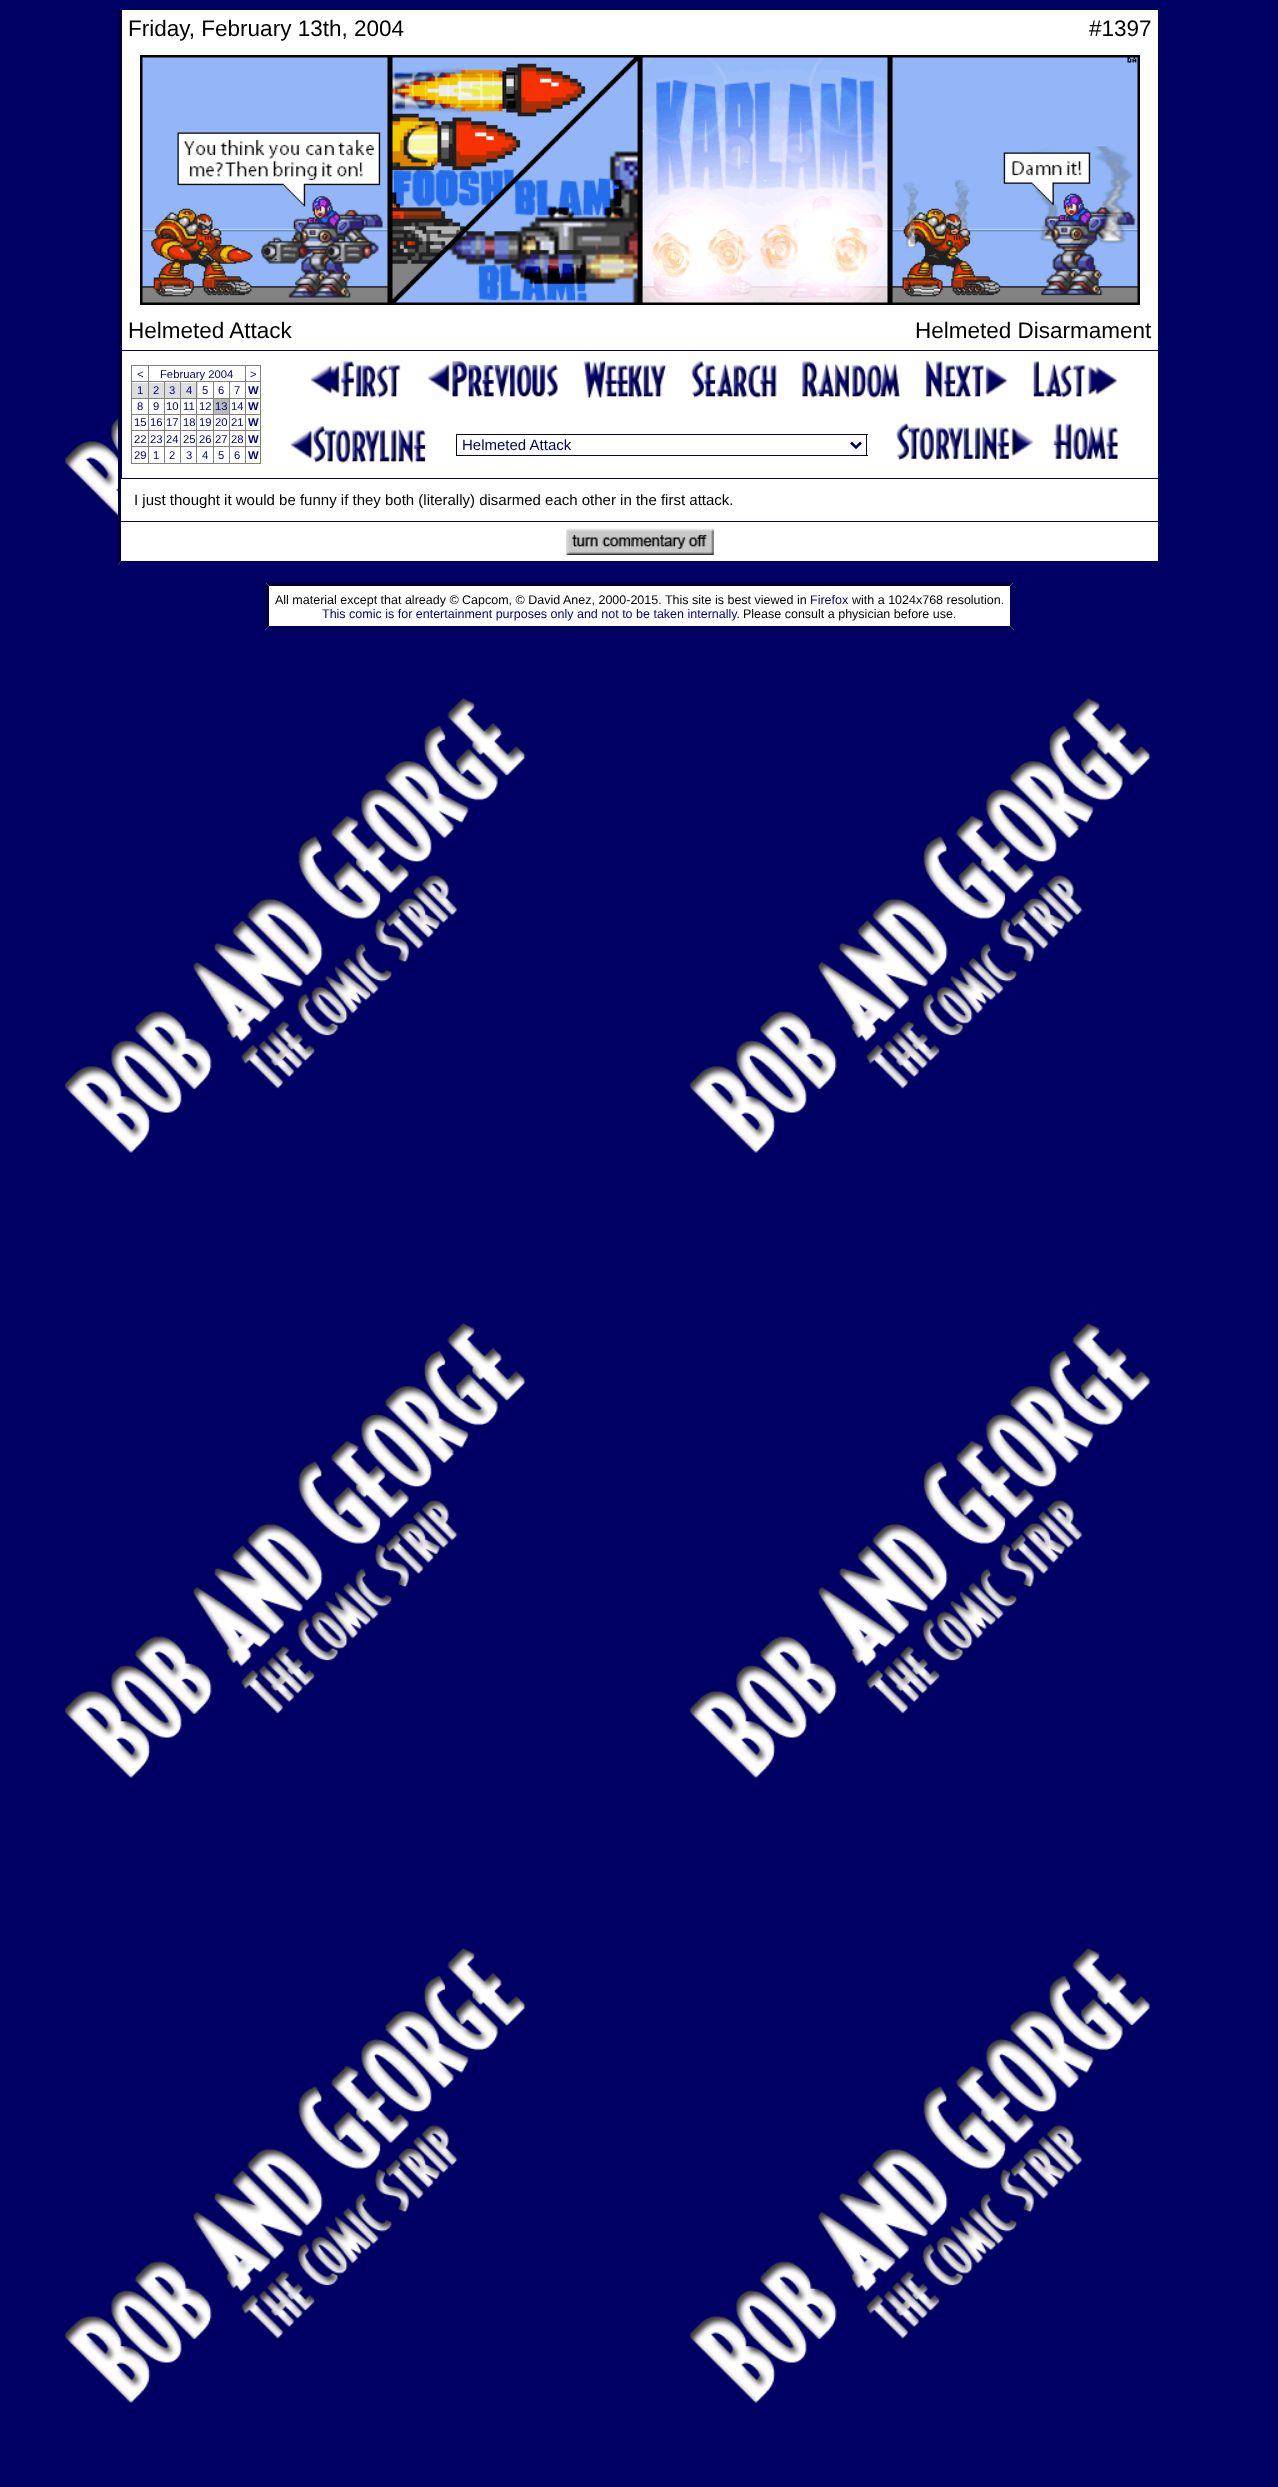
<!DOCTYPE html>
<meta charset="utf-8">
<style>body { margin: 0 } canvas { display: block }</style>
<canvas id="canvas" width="1278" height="2487"></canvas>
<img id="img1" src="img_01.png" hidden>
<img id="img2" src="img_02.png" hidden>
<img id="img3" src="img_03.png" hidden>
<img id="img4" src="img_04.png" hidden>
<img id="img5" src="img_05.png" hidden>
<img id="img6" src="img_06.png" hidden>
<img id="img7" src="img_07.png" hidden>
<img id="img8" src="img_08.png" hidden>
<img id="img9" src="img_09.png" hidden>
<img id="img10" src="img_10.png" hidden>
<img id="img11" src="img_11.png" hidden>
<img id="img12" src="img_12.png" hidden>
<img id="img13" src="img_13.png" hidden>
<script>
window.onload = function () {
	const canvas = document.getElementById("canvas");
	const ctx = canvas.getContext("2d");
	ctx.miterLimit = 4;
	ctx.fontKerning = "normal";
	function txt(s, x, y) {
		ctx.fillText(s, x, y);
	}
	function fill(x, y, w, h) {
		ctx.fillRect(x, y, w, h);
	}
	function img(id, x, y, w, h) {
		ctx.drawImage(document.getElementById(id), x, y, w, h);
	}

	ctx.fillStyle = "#FFFFFF";
	fill(0, 0, 1278, 2487);
	img("img1", 0, 0, 1278, 2487);
	fill(122, 10, 1036, 340);
	ctx.fillStyle = "#000043";
	fill(118, 10, 4, 468);
	img("img2", 140, 55, 1000, 250);
	ctx.fillStyle = "#000064";
	fill(121, 350, 271, 1);
	fill(822, 350, 195, 1);
	ctx.fillStyle = "#FFFFFF";
	fill(122, 351, 1036, 127);
	ctx.fillStyle = "#808080";
	fill(131, 365, 130, 1);
	fill(260, 365, 1, 99);
	fill(131, 463, 130, 1);
	fill(131, 365, 1, 99);
	fill(245, 381, 16, 1);
	fill(245, 398, 16, 1);
	fill(245, 414, 16, 1);
	fill(245, 430, 16, 1);
	fill(245, 446, 16, 1);
	fill(245, 446, 1, 18);
	fill(229, 446, 17, 1);
	fill(245, 430, 1, 18);
	fill(229, 430, 17, 1);
	fill(245, 414, 1, 17);
	fill(229, 414, 17, 1);
	fill(245, 398, 1, 17);
	fill(229, 398, 17, 1);
	fill(245, 381, 1, 18);
	fill(229, 381, 17, 1);
	fill(229, 446, 1, 18);
	fill(213, 446, 17, 1);
	fill(229, 430, 1, 18);
	fill(213, 430, 17, 1);
	fill(229, 414, 1, 17);
	fill(213, 414, 17, 1);
	fill(229, 398, 1, 17);
	fill(213, 398, 17, 1);
	fill(229, 381, 1, 18);
	fill(213, 381, 17, 1);
	fill(213, 446, 1, 18);
	fill(196, 446, 18, 1);
	fill(213, 430, 1, 18);
	fill(196, 430, 18, 1);
	fill(213, 414, 1, 17);
	fill(196, 414, 18, 1);
	fill(213, 398, 1, 17);
	fill(196, 398, 18, 1);
	fill(213, 381, 1, 18);
	fill(196, 381, 18, 1);
	ctx.fillStyle = "#DDDDDD";
	fill(181, 383, 17, 15);
	ctx.fillStyle = "#808080";
	fill(196, 446, 1, 18);
	fill(180, 446, 18, 1);
	fill(196, 430, 1, 18);
	fill(180, 430, 18, 1);
	fill(196, 414, 1, 17);
	fill(180, 414, 18, 1);
	fill(196, 398, 1, 17);
	fill(180, 398, 18, 1);
	fill(196, 381, 1, 18);
	fill(180, 381, 18, 1);
	fill(180, 446, 1, 18);
	fill(164, 446, 17, 1);
	fill(180, 430, 1, 18);
	fill(164, 430, 17, 1);
	fill(180, 414, 1, 17);
	fill(164, 414, 17, 1);
	fill(180, 398, 1, 17);
	fill(164, 398, 17, 1);
	fill(180, 381, 1, 18);
	fill(164, 381, 17, 1);
	fill(164, 446, 1, 18);
	fill(148, 446, 17, 1);
	fill(164, 430, 1, 18);
	fill(148, 430, 17, 1);
	fill(164, 414, 1, 17);
	fill(148, 414, 17, 1);
	fill(164, 398, 1, 17);
	fill(148, 398, 17, 1);
	fill(164, 381, 1, 18);
	fill(148, 381, 17, 1);
	fill(148, 446, 1, 18);
	fill(131, 446, 18, 1);
	fill(148, 430, 1, 18);
	fill(131, 430, 18, 1);
	fill(148, 414, 1, 17);
	fill(131, 414, 18, 1);
	fill(148, 398, 1, 17);
	fill(131, 398, 18, 1);
	fill(148, 381, 1, 18);
	fill(131, 381, 18, 1);
	fill(148, 365, 1, 18);
	fill(245, 365, 1, 18);
	ctx.fillStyle = "#DDDDDD";
	fill(132, 383, 16, 15);
	fill(149, 383, 15, 15);
	fill(165, 383, 15, 15);
	ctx.fillStyle = "#BBBBBB";
	fill(214, 399, 15, 15);
	img("img3", 310, 361, 91, 37);
	img("img4", 427, 361, 131, 36);
	img("img5", 583, 361, 84, 37);
	img("img6", 691, 361, 86, 37);
	img("img7", 802, 361, 99, 37);
	img("img8", 926, 360, 82, 38);
	img("img9", 1033, 361, 85, 37);
	img("img10", 290, 426, 136, 37);
	ctx.fillStyle = "#000043";
	fill(456, 434, 412, 1);
	ctx.fillStyle = "#000064";
	fill(866, 434, 1, 22);
	fill(456, 455, 412, 1);
	ctx.fillStyle = "#000043";
	fill(456, 434, 1, 22);
	ctx.beginPath();
	ctx.moveTo(851, 442.5);
	ctx.lineTo(856, 447.5);
	ctx.lineTo(861, 442.5);
	ctx.strokeStyle = "#000064";
	ctx.lineWidth = 2.5;
	ctx.stroke();
	img("img11", 896, 423, 138, 38);
	img("img12", 1053, 423, 65, 38);
	ctx.fillStyle = "#FFFFFF";
	fill(118, 479, 1040, 86);
	ctx.fillStyle = "#000064";
	ctx.beginPath();
	ctx.moveTo(1161, 565);
	ctx.lineTo(118, 565);
	ctx.lineTo(121, 561);
	ctx.lineTo(1158, 561);
	ctx.closePath();
	ctx.fill();
	ctx.fillStyle = "#000043";
	ctx.beginPath();
	ctx.moveTo(118, 565);
	ctx.lineTo(118, 478);
	ctx.lineTo(121, 478);
	ctx.lineTo(121, 561);
	ctx.closePath();
	ctx.fill();
	ctx.fillStyle = "#000064";
	fill(121, 478, 686, 1);
	fill(121, 521, 1037, 1);
	img("img13", 566, 528, 148, 27);
	ctx.fillStyle = "#FFFFFF";
	fill(265, 583, 749, 47);
	ctx.fillStyle = "#000043";
	ctx.beginPath();
	ctx.moveTo(265, 582);
	ctx.lineTo(1014, 582);
	ctx.lineTo(1010, 586);
	ctx.lineTo(269, 586);
	ctx.closePath();
	ctx.fill();
	ctx.fillStyle = "#000064";
	ctx.beginPath();
	ctx.moveTo(1014, 582);
	ctx.lineTo(1014, 630);
	ctx.lineTo(1010, 626);
	ctx.lineTo(1010, 586);
	ctx.closePath();
	ctx.fill();
	ctx.beginPath();
	ctx.moveTo(1014, 630);
	ctx.lineTo(265, 630);
	ctx.lineTo(269, 626);
	ctx.lineTo(1010, 626);
	ctx.closePath();
	ctx.fill();
	ctx.fillStyle = "#000043";
	ctx.beginPath();
	ctx.moveTo(265, 630);
	ctx.lineTo(265, 582);
	ctx.lineTo(269, 586);
	ctx.lineTo(269, 626);
	ctx.closePath();
	ctx.fill();
	ctx.font = "22.5px Liberation Sans";
	ctx.fillStyle = "#000000";
	txt("Friday, February 13th, 2004", 128, 36);
	txt("#1397", 1089, 36);
	txt("Helmeted Attack", 128, 338);
	txt("Helmeted Disarmament", 915, 338);
	ctx.font = "11.25px Liberation Sans";
	ctx.fillStyle = "#000080";
	txt("<", 137, 378);
	txt("February 2004", 160, 378);
	txt(">", 250, 378);
	txt("1", 137, 394);
	txt("2", 153, 394);
	txt("3", 169, 394);
	txt("4", 186, 394);
	txt("5", 202, 394);
	txt("6", 218, 394);
	txt("7", 234, 394);
	ctx.font = "bold 11.25px Liberation Sans";
	txt("W", 248, 394);
	ctx.font = "11.25px Liberation Sans";
	txt("8", 137, 410);
	txt("9", 153, 410);
	txt("10", 166, 410);
	txt("11", 183, 410);
	txt("12", 199, 410);
	txt("13", 215, 410);
	txt("14", 231, 410);
	ctx.font = "bold 11.25px Liberation Sans";
	txt("W", 248, 410);
	ctx.font = "11.25px Liberation Sans";
	txt("15", 134, 426);
	txt("16", 150, 426);
	txt("17", 166, 426);
	txt("18", 183, 426);
	txt("19", 199, 426);
	txt("20", 215, 426);
	txt("21", 231, 426);
	ctx.font = "bold 11.25px Liberation Sans";
	txt("W", 248, 426);
	ctx.font = "11.25px Liberation Sans";
	txt("22", 134, 443);
	txt("23", 150, 443);
	txt("24", 166, 443);
	txt("25", 183, 443);
	txt("26", 199, 443);
	txt("27", 215, 443);
	txt("28", 231, 443);
	ctx.font = "bold 11.25px Liberation Sans";
	txt("W", 248, 443);
	ctx.font = "11.25px Liberation Sans";
	txt("29", 134, 459);
	txt("1", 153, 459);
	txt("2", 169, 459);
	txt("3", 186, 459);
	txt("4", 202, 459);
	txt("5", 218, 459);
	txt("6", 234, 459);
	ctx.font = "bold 11.25px Liberation Sans";
	txt("W", 248, 459);
	ctx.font = "15px Liberation Sans";
	ctx.fillStyle = "#000064";
	txt("Helmeted Attack", 462, 450);
	ctx.fillStyle = "#000000";
	txt("I just thought it would be funny if they both (literally) disarmed each other in the first attack.", 134, 505);
	ctx.font = "12.5px Liberation Sans";
	txt("All material except that already © Capcom, © David Anez, 2000-2015. This site is best viewed in", 275, 604);
	ctx.fillStyle = "#000080";
	txt("Firefox", 810, 604);
	ctx.fillStyle = "#000000";
	txt("with a 1024x768 resolution.", 852, 604);
	ctx.fillStyle = "#000080";
	txt("This comic is for entertainment purposes only and not to be taken internally.", 322, 618);
	ctx.fillStyle = "#000000";
	txt("Please consult a physician before use.", 743, 618);
};
</script>
